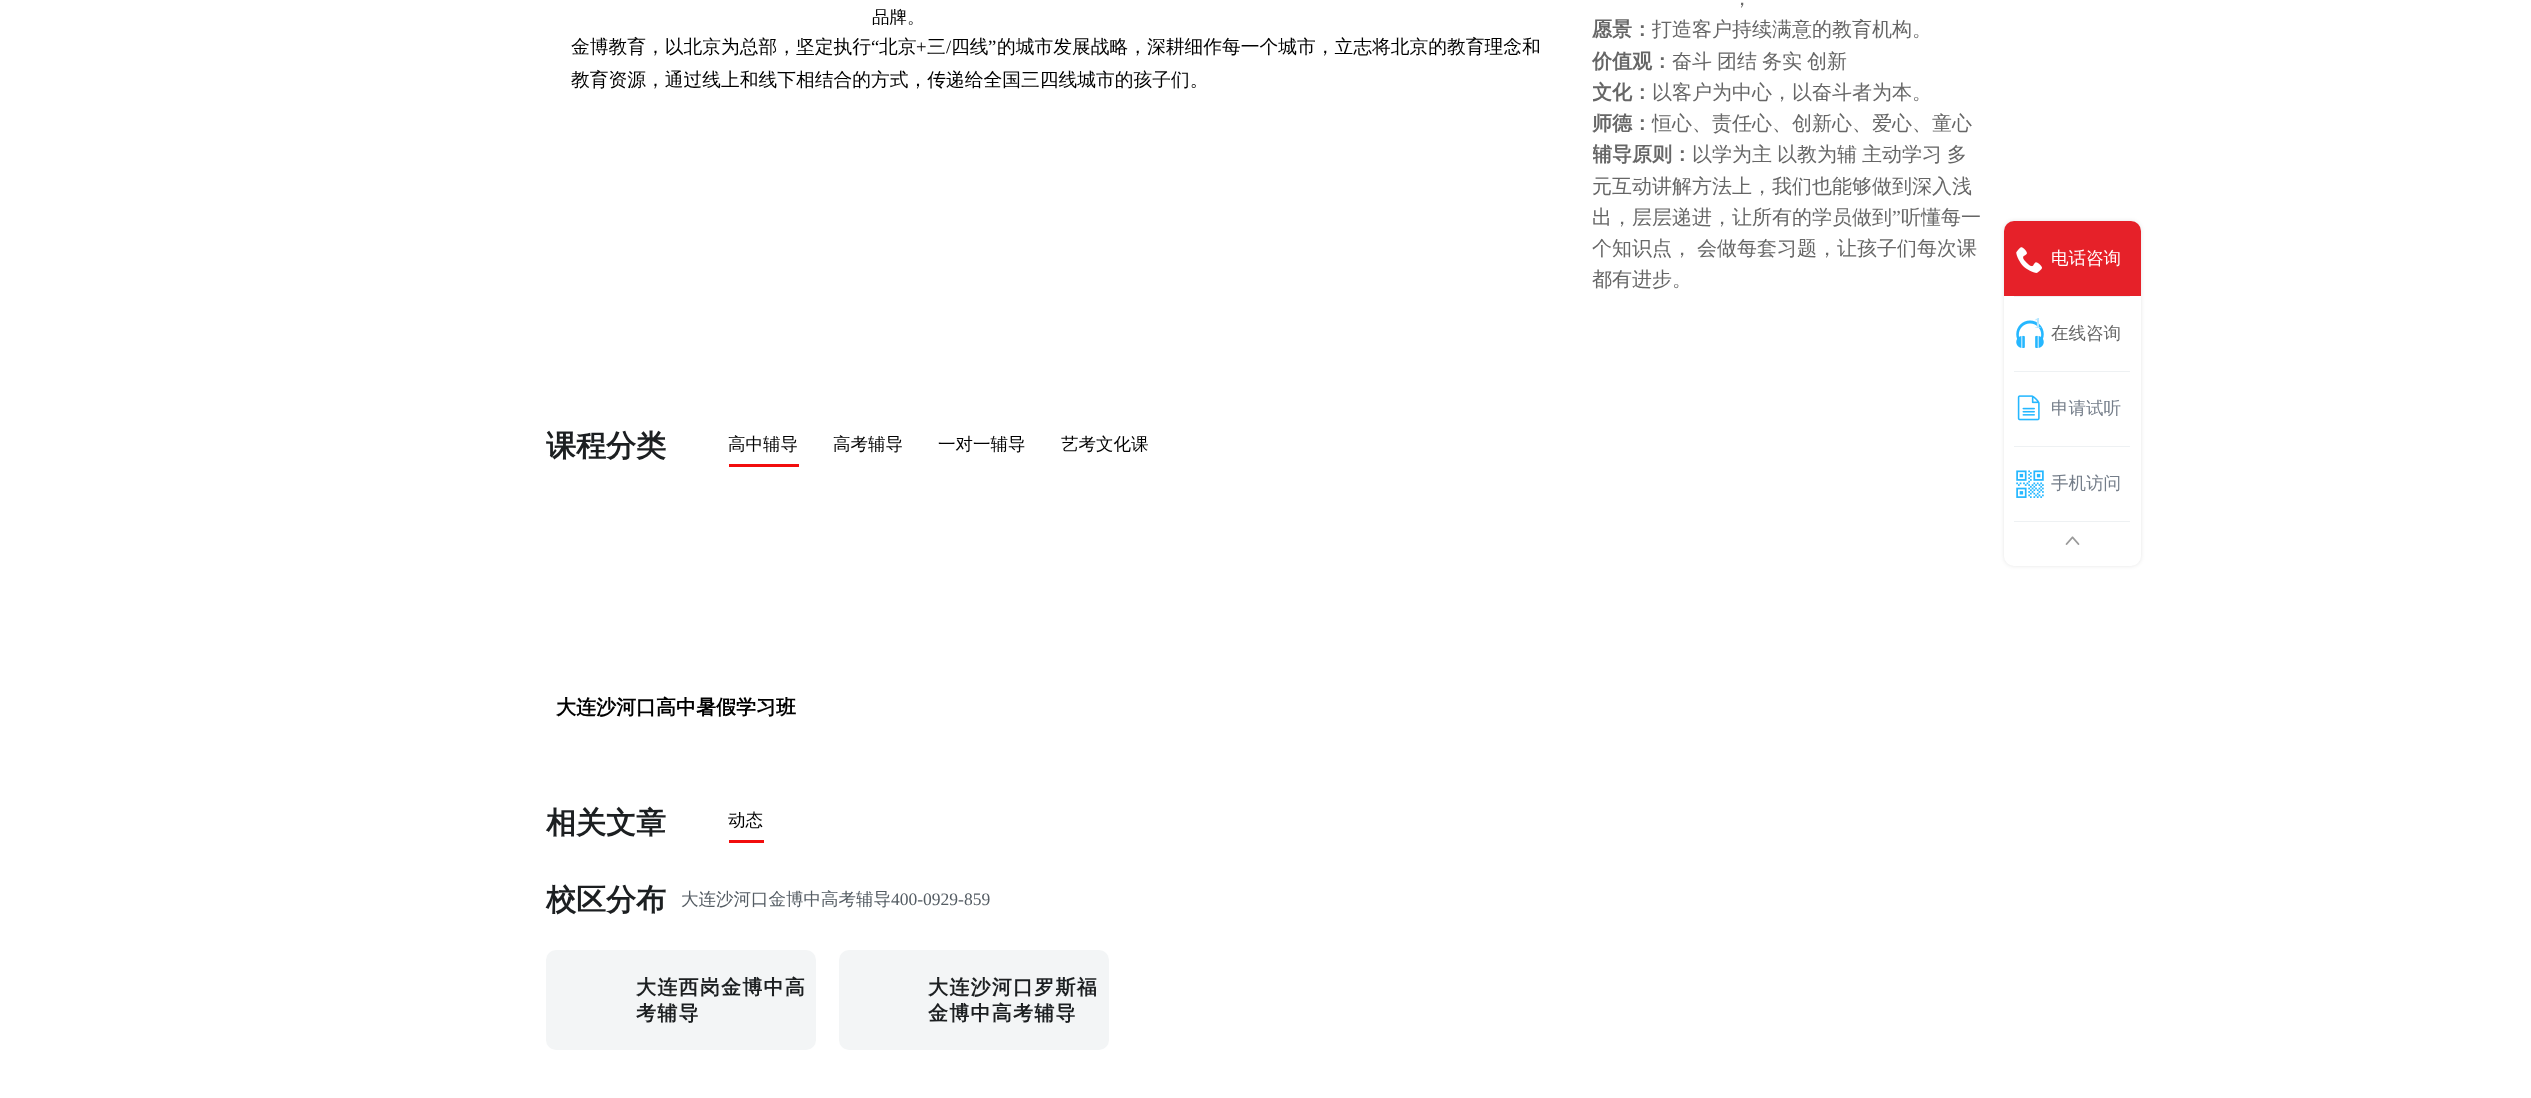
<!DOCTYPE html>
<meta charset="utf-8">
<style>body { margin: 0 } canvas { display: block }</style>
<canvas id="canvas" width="2531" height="1098"></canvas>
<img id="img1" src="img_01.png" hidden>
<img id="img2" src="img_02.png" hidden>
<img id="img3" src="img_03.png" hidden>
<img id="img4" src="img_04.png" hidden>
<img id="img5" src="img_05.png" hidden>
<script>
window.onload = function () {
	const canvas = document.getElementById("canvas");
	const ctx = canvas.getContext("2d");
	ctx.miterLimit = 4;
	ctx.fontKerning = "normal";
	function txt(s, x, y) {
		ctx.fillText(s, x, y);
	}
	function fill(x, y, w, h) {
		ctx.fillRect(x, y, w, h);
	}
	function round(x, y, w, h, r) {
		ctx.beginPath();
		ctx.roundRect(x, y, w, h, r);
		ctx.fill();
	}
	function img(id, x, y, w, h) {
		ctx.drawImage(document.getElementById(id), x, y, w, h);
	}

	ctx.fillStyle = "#FFFFFF";
	fill(0, 0, 2531, 1098);
	ctx.fillStyle = "rgba(0, 0, 0, 0.1)";
	ctx.filter = "blur(2px)";
	ctx.beginPath();
	ctx.roundRect(2004, 221, 137, 345, 10);
	ctx.fill();
	ctx.filter = "none";
	ctx.fillStyle = "#FFFFFF";
	round(2004, 221, 137, 345, 10);
	ctx.fillStyle = "#E62129";
	ctx.beginPath();
	ctx.roundRect(2004, 221, 137, 75, [10, 10, 0, 0]);
	ctx.fill();
	img("img1", 2016, 247, 26, 26);
	ctx.fillStyle = "#EEF1F3";
	fill(2014, 296, 116, 1);
	img("img2", 2016, 320, 28, 28);
	fill(2014, 371, 116, 1);
	img("img3", 2017, 395, 23, 26);
	fill(2014, 446, 116, 1);
	img("img4", 2016, 470, 28, 28);
	fill(2014, 521, 116, 1);
	img("img5", 2065, 536, 15, 9);
	ctx.fillStyle = "#F20D0D";
	fill(729, 464, 70, 3);
	fill(729, 840, 35, 3);
	ctx.fillStyle = "#F3F5F6";
	round(546, 950, 270, 100, 10);
	round(839, 950, 270, 100, 10);
	ctx.font = "500 17.5px WenQuanYi Zen Hei";
	ctx.fillStyle = "#000000";
	txt("品牌。", 872, 23);
	ctx.font = "500 18.75px WenQuanYi Zen Hei";
	txt("金博教育，以北京为总部，坚定执行", 571, 53);
	ctx.font = "18.75px Liberation Serif";
	txt("“", 871, 53);
	ctx.font = "500 18.75px WenQuanYi Zen Hei";
	txt("北京", 879, 53);
	ctx.font = "18.75px Liberation Serif";
	txt("+", 916, 53);
	ctx.font = "500 18.75px WenQuanYi Zen Hei";
	txt("三", 927, 53);
	ctx.font = "18.75px Liberation Serif";
	txt("/", 946, 53);
	ctx.font = "500 18.75px WenQuanYi Zen Hei";
	txt("四线", 951, 53);
	ctx.font = "18.75px Liberation Serif";
	txt("”", 988, 53);
	ctx.font = "500 18.75px WenQuanYi Zen Hei";
	txt("的城市发展战略，深耕细作每一个城市，立志将北京的教育理念和", 997, 53);
	txt("教育资源，通过线上和线下相结合的方式，传递给全国三四线城市的孩子们。", 571, 86);
	ctx.font = "500 20px WenQuanYi Zen Hei";
	ctx.fillStyle = "#666666";
	txt("，", 1732, 5);
	ctx.font = "bold 20px WenQuanYi Zen Hei";
	txt("愿景：", 1592, 36);
	ctx.font = "500 20px WenQuanYi Zen Hei";
	txt("打造客户持续满意的教育机构。", 1652, 36);
	ctx.font = "bold 20px WenQuanYi Zen Hei";
	txt("价值观：", 1592, 68);
	ctx.wordSpacing = "-1px";
	ctx.font = "500 20px WenQuanYi Zen Hei";
	txt("奋斗 团结 务实 创新", 1672, 68);
	ctx.save();
	ctx.beginPath();
	ctx.rect(1593, 0, 393, 389);
	ctx.clip();
	ctx.wordSpacing = "0px";
	ctx.font = "bold 20px WenQuanYi Zen Hei";
	txt("文化：", 1592, 99);
	ctx.restore();
	ctx.wordSpacing = "0px";
	txt("以客户为中心，以奋斗者为本。", 1652, 99);
	ctx.font = "bold 20px WenQuanYi Zen Hei";
	txt("师德：", 1592, 130);
	ctx.font = "500 20px WenQuanYi Zen Hei";
	txt("恒心、责任心、创新心、爱心、童心", 1652, 130);
	ctx.save();
	ctx.beginPath();
	ctx.rect(1593, 0, 393, 389);
	ctx.clip();
	ctx.font = "bold 20px WenQuanYi Zen Hei";
	txt("辅导原则：", 1592, 161);
	ctx.restore();
	ctx.wordSpacing = "-1px";
	txt("以学为主 以教为辅 主动学习 多", 1692, 161);
	ctx.wordSpacing = "0px";
	txt("元互动讲解方法上，我们也能够做到深入浅", 1592, 193);
	txt("出，层层递进，让所有的学员做到", 1592, 224);
	ctx.font = "20px Liberation Serif";
	txt("”", 1892, 224);
	ctx.font = "500 20px WenQuanYi Zen Hei";
	txt("听懂每一", 1901, 224);
	ctx.wordSpacing = "-1px";
	txt("个知识点， 会做每套习题，让孩子们每次课", 1592, 255);
	ctx.wordSpacing = "0px";
	txt("都有进步。", 1592, 286);
	ctx.font = "500 17.5px WenQuanYi Zen Hei";
	ctx.fillStyle = "#FFFFFF";
	txt("电话咨询", 2051, 264);
	ctx.font = "bold 15px Liberation Serif";
	ctx.fillStyle = "#B3E6FF";
	txt("1", 2034, 328);
	ctx.font = "500 17.5px WenQuanYi Zen Hei";
	ctx.fillStyle = "#666666";
	txt("在线咨询", 2051, 339);
	ctx.fillStyle = "#747D89";
	txt("申请试听", 2051, 414);
	txt("手机访问", 2051, 489);
	ctx.font = "bold 30px WenQuanYi Zen Hei";
	ctx.fillStyle = "#1C1F21";
	txt("课程分类", 546, 456);
	ctx.font = "500 17.5px WenQuanYi Zen Hei";
	ctx.fillStyle = "#000000";
	txt("高中辅导", 728, 450);
	txt("高考辅导", 833, 450);
	txt("一对一辅导", 938, 450);
	txt("艺考文化课", 1061, 450);
	ctx.font = "bold 20px WenQuanYi Zen Hei";
	txt("大连沙河口高中暑假学习班", 556, 714);
	ctx.font = "bold 30px WenQuanYi Zen Hei";
	ctx.fillStyle = "#1C1F21";
	txt("相关文章", 546, 833);
	ctx.font = "500 17.5px WenQuanYi Zen Hei";
	ctx.fillStyle = "#000000";
	txt("动态", 728, 826);
	ctx.font = "bold 30px WenQuanYi Zen Hei";
	ctx.fillStyle = "#1C1F21";
	txt("校区分布", 546, 910);
	ctx.font = "500 17.5px WenQuanYi Zen Hei";
	ctx.fillStyle = "#545C63";
	txt("大连沙河口金博中高考辅导", 681, 905);
	ctx.font = "17.5px Liberation Serif";
	txt("400-0929-859", 891, 905);
	ctx.letterSpacing = "1.25px";
	ctx.font = "bold 20px WenQuanYi Zen Hei";
	ctx.fillStyle = "#1C1F21";
	txt("大连西岗金博中高", 636, 994);
	txt("考辅导", 636, 1020);
	txt("大连沙河口罗斯福", 928, 994);
	txt("金博中高考辅导", 928, 1020);
};
</script>
